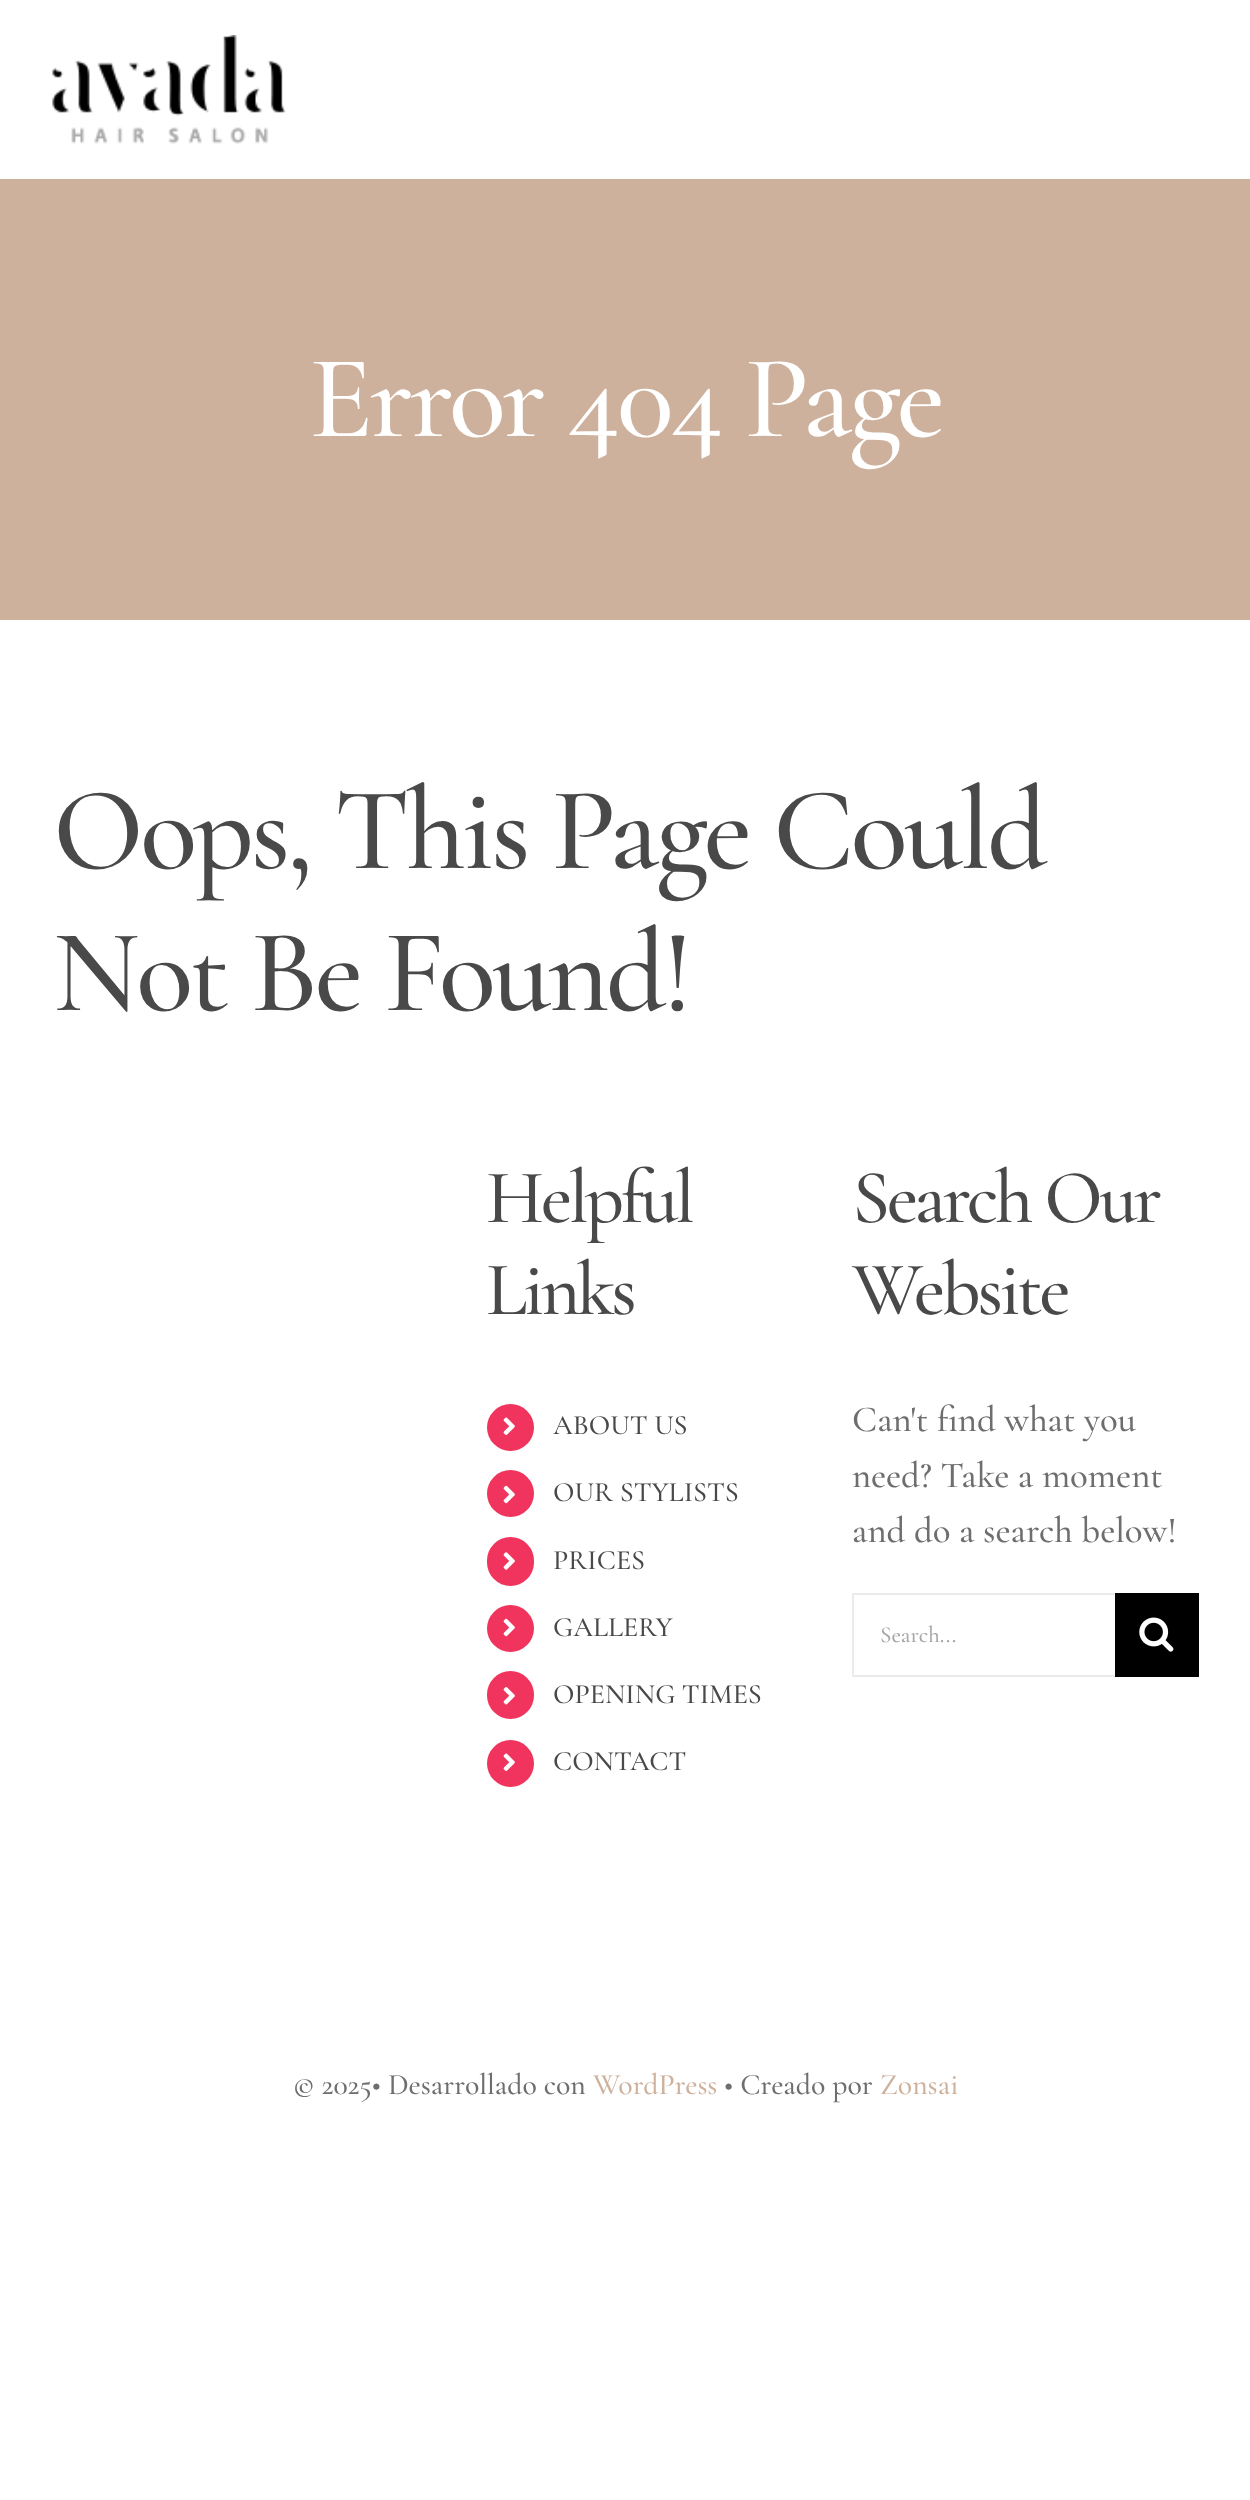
<!DOCTYPE html>
<meta charset="utf-8">
<style>body { margin: 0 } canvas { display: block }</style>
<canvas id="canvas" width="1250" height="2500"></canvas>
<img id="img1" src="img_01.png" hidden>
<img id="img2" src="img_02.png" hidden>
<img id="img3" src="img_03.png" hidden>
<img id="img4" src="img_04.png" hidden>
<img id="img5" src="img_05.png" hidden>
<img id="img6" src="img_06.png" hidden>
<script>
window.onload = function () {
	const canvas = document.getElementById("canvas");
	const ctx = canvas.getContext("2d");
	ctx.miterLimit = 4;
	ctx.fontKerning = "normal";
	function txt(s, x, y) {
		ctx.fillText(s, x, y);
	}
	function fill(x, y, w, h) {
		ctx.fillRect(x, y, w, h);
	}
	function round(x, y, w, h, r) {
		ctx.beginPath();
		ctx.roundRect(x, y, w, h, r);
		ctx.fill();
	}
	function img(id, x, y, w, h) {
		ctx.drawImage(document.getElementById(id), x, y, w, h);
	}

	ctx.fillStyle = "#FFFFFF";
	fill(0, 0, 1250, 2500);
	img("img1", 52, 35, 234, 109);
	ctx.fillStyle = "#CEB19C";
	fill(0, 179, 1250, 441);
	ctx.fillStyle = "#F1345D";
	ctx.beginPath();
	ctx.arc(510.5, 1427.5, 23.5, 0, Math.PI * 2);
	ctx.fill();
	img("img2", 503, 1417, 12, 18);
	ctx.beginPath();
	ctx.arc(510.5, 1493.5, 23.5, 0, Math.PI * 2);
	ctx.fill();
	img("img3", 503, 1485, 12, 19);
	round(487, 1537, 47, 49, 23.5);
	img("img4", 503, 1552, 12, 18);
	ctx.beginPath();
	ctx.arc(510.5, 1628.5, 23.5, 0, Math.PI * 2);
	ctx.fill();
	img("img3", 503, 1618, 12, 19);
	round(487, 1671, 47, 48, 23.5);
	img("img5", 503, 1687, 12, 18);
	ctx.beginPath();
	ctx.arc(510.5, 1763.5, 23.5, 0, Math.PI * 2);
	ctx.fill();
	img("img2", 503, 1753, 12, 18);
	ctx.fillStyle = "#EBEBEB";
	fill(852, 1593, 263, 2);
	fill(852, 1675, 263, 2);
	fill(852, 1593, 2, 84);
	ctx.fillStyle = "#000000";
	fill(1115, 1593, 84, 84);
	img("img6", 1139, 1617, 35, 35);
	ctx.letterSpacing = "-3.5px";
	ctx.font = "500 118.5px Cormorant Garamond";
	ctx.fillStyle = "#FFFFFF";
	txt("Error 404 Page", 309, 436);
	ctx.fillStyle = "#494949";
	txt("Oops, This Page Could", 53, 868);
	txt("Not Be Found!", 53, 1010);
	ctx.font = "500 76.5px Cormorant Garamond";
	txt("Helpful", 486, 1222);
	txt("Links", 486, 1314);
	ctx.letterSpacing = "0px";
	ctx.font = "500 28px Cormorant Garamond";
	txt("ABOUT US", 553, 1434);
	txt("OUR STYLISTS", 553, 1501);
	txt("PRICES", 553, 1569);
	txt("GALLERY", 553, 1636);
	txt("OPENING TIMES", 553, 1703);
	txt("CONTACT", 553, 1770);
	ctx.letterSpacing = "-3.5px";
	ctx.font = "500 76.5px Cormorant Garamond";
	txt("Search Our", 852, 1222);
	txt("Website", 852, 1314);
	ctx.letterSpacing = "0px";
	ctx.font = "500 36.75px Cormorant Garamond";
	ctx.fillStyle = "#6E6E6E";
	txt("Can't find what you", 852, 1431);
	txt("need? Take a moment", 852, 1487);
	txt("and do a search below!", 852, 1542);
	ctx.font = "500 23px Cormorant Garamond";
	ctx.fillStyle = "#A6A6A6";
	txt("Search...", 880, 1642);
	ctx.font = "500 29.75px Cormorant Garamond";
	ctx.fillStyle = "#6E6E6E";
	txt("© 2025• Desarrollado con", 293, 2094);
	ctx.fillStyle = "#CEB19C";
	txt("WordPress", 593, 2094);
	ctx.fillStyle = "#6E6E6E";
	txt("• Creado por", 724, 2094);
	ctx.fillStyle = "#CEB19C";
	txt("Zonsai", 880, 2094);
};
</script>
